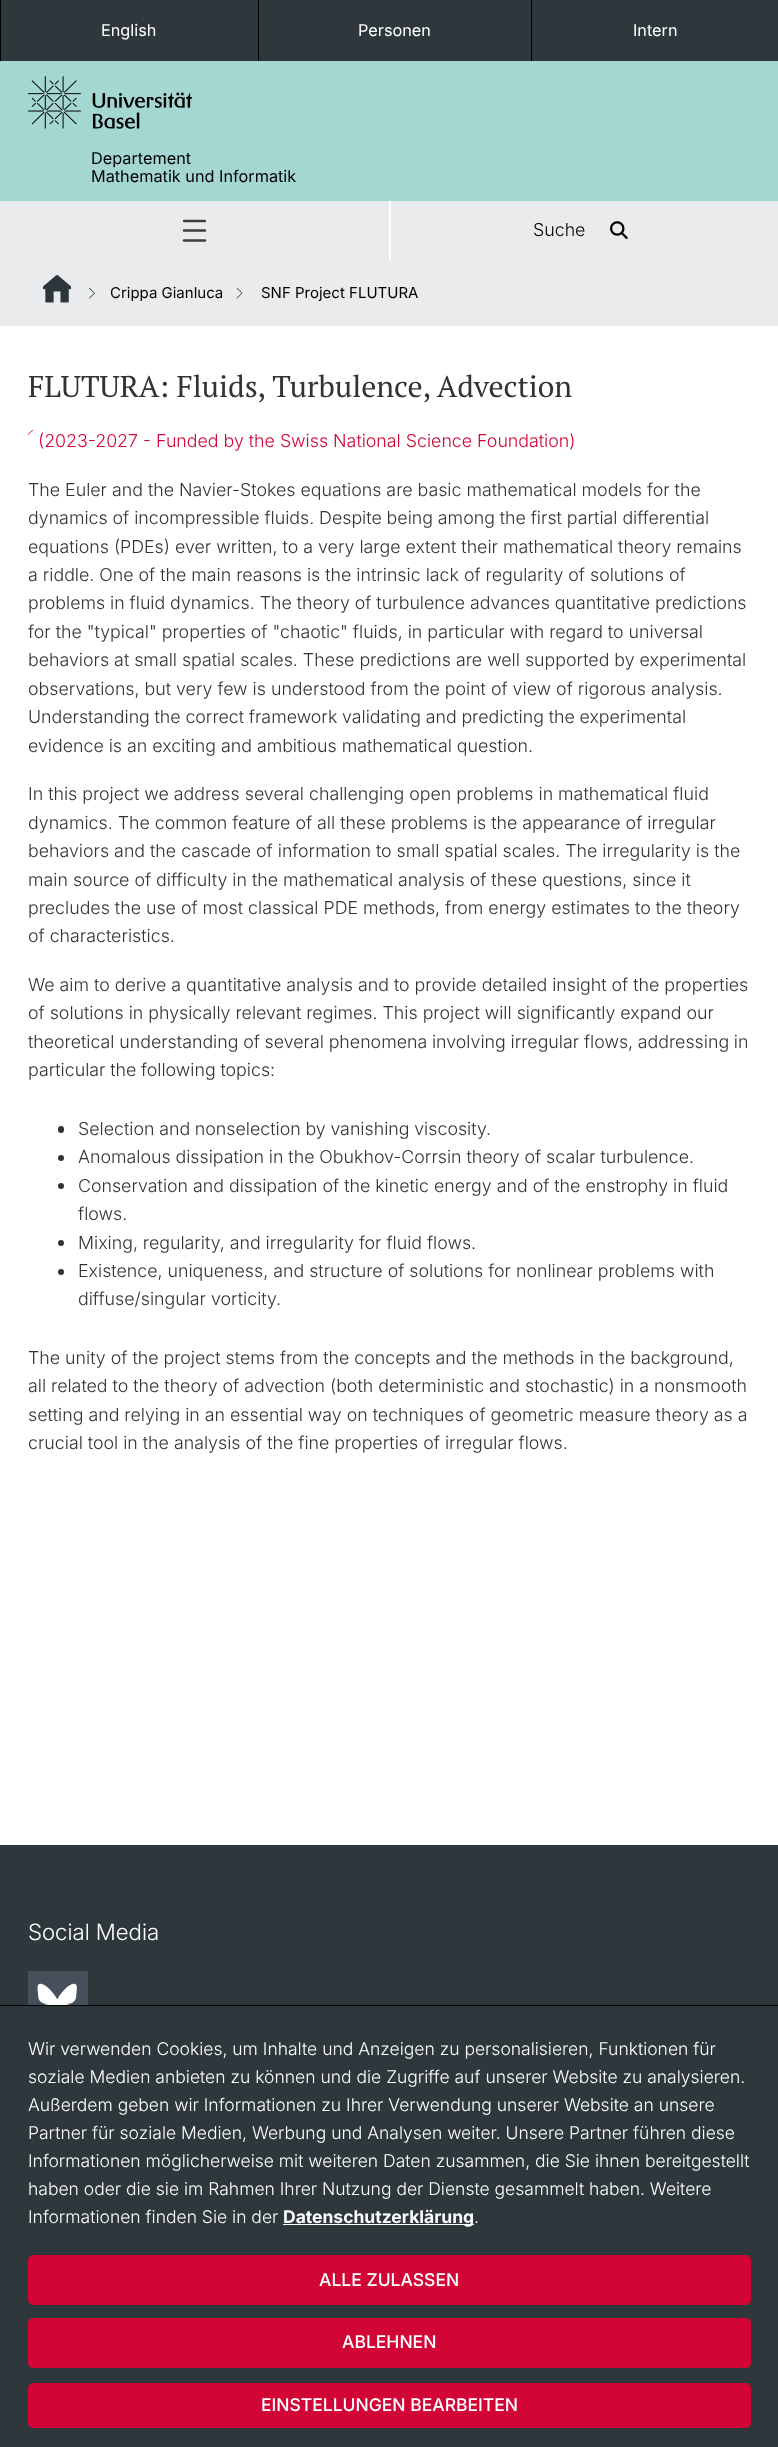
<!DOCTYPE html>
<meta charset="utf-8">
<style>body { margin: 0 } canvas { display: block }</style>
<canvas id="canvas" width="778" height="2447"></canvas>
<img id="img1" src="img_01.png" hidden>
<img id="img2" src="img_02.png" hidden>
<img id="img3" src="img_03.png" hidden>
<img id="img4" src="img_04.png" hidden>
<img id="img5" src="img_05.png" hidden>
<img id="img6" src="img_06.png" hidden>
<img id="img7" src="img_07.png" hidden>
<script>
window.onload = function () {
	const canvas = document.getElementById("canvas");
	const ctx = canvas.getContext("2d");
	ctx.miterLimit = 4;
	ctx.fontKerning = "normal";
	function txt(s, x, y) {
		ctx.fillText(s, x, y);
	}
	function fill(x, y, w, h) {
		ctx.fillRect(x, y, w, h);
	}
	function round(x, y, w, h, r) {
		ctx.beginPath();
		ctx.roundRect(x, y, w, h, r);
		ctx.fill();
	}
	function img(id, x, y, w, h) {
		ctx.drawImage(document.getElementById(id), x, y, w, h);
	}

	ctx.fillStyle = "#FFFFFF";
	fill(0, 0, 778, 2447);
	ctx.fillStyle = "#2D373C";
	fill(1, 0, 777, 61);
	ctx.fillStyle = "#000000";
	fill(258, 0, 1, 61);
	fill(0, 0, 1, 61);
	fill(531, 0, 1, 61);
	ctx.fillStyle = "#A5D7D2";
	fill(0, 61, 778, 140);
	img("img1", 28, 76, 164, 53);
	ctx.fillStyle = "#EAEBEC";
	fill(0, 201, 389, 59);
	ctx.save();
	ctx.beginPath();
	ctx.rect(183, 219, 23, 24);
	ctx.clip();
	ctx.beginPath();
	ctx.moveTo(184, 221);
	ctx.lineTo(205, 221);
	ctx.strokeStyle = "#3E3E3E";
	ctx.lineWidth = 2.5;
	ctx.lineCap = "round";
	ctx.stroke();
	ctx.restore();
	ctx.beginPath();
	ctx.moveTo(184, 230.5);
	ctx.lineTo(205, 230.5);
	ctx.moveTo(184, 240.5);
	ctx.lineTo(205, 240.5);
	ctx.strokeStyle = "#3E3E3E";
	ctx.lineWidth = 2.5;
	ctx.lineCap = "round";
	ctx.stroke();
	fill(391, 201, 387, 59);
	img("img2", 610, 221, 18, 18);
	fill(0, 260, 778, 66);
	img("img3", 43, 275, 28, 28);
	img("img4", 89, 288, 6, 11);
	img("img5", 236, 288, 7, 11);
	img("img6", 28, 430, 6, 5);
	ctx.fillStyle = "#333333";
	round(58, 1126, 6, 7, 3);
	ctx.beginPath();
	ctx.arc(61, 1158, 3, 0, Math.PI * 2);
	ctx.fill();
	ctx.beginPath();
	ctx.arc(61, 1186, 3, 0, Math.PI * 2);
	ctx.fill();
	ctx.beginPath();
	ctx.arc(61, 1243, 3, 0, Math.PI * 2);
	ctx.fill();
	ctx.beginPath();
	ctx.arc(61, 1272, 3, 0, Math.PI * 2);
	ctx.fill();
	ctx.fillStyle = "#2D373C";
	fill(0, 1845, 778, 160);
	ctx.fillStyle = "#46505A";
	fill(28, 1971, 60, 34);
	img("img7", 37, 1983, 40, 22);
	ctx.fillStyle = "rgba(0, 0, 0, 0.19)";
	ctx.filter = "blur(6px)";
	ctx.beginPath();
	ctx.rect(6, 2011, 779, 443);
	ctx.fill();
	ctx.filter = "none";
	ctx.fillStyle = "#2D373C";
	fill(0, 2006, 778, 441);
	ctx.fillStyle = "#000000";
	fill(0, 2005, 778, 1);
	ctx.fillStyle = "#FFFFFF";
	fill(283, 2224, 191, 1);
	ctx.fillStyle = "#D20537";
	round(28, 2255, 723, 50, 5);
	round(28, 2318, 723, 50, 5);
	round(28, 2383, 723, 45, 5);
	ctx.font = "16.25px Inter";
	ctx.fillStyle = "#FFFFFF";
	txt("English", 101, 36);
	txt("Personen", 358, 36);
	txt("Intern", 633, 36);
	ctx.fillStyle = "#000000";
	txt("Departement", 91, 164);
	txt("Mathematik und Informatik", 91, 182);
	ctx.font = "300 17.8px Inter";
	txt("Suche", 533, 236);
	ctx.font = "15px Inter";
	txt("Crippa Gianluca", 110, 298);
	txt("SNF Project FLUTURA", 261, 298);
	ctx.font = "30px PT Serif";
	ctx.fillStyle = "#333333";
	txt("FLUTURA: Fluids, Turbulence, Advection", 28, 397);
	ctx.font = "300 17.8px Inter";
	ctx.fillStyle = "#D20537";
	txt("(2023-2027 - Funded by the Swiss National Science Foundation)", 38, 447);
	ctx.fillStyle = "#333333";
	txt("The Euler and the Navier-Stokes equations are basic mathematical models for the", 28, 496);
	ctx.wordSpacing = "-0.1px";
	txt("dynamics of incompressible fluids. Despite being among the first partial differential", 28, 524);
	ctx.wordSpacing = "0px";
	txt("equations (PDEs) ever written, to a very large extent their mathematical theory remains", 28, 553);
	txt("a riddle. One of the main reasons is the intrinsic lack of regularity of solutions of", 28, 581);
	ctx.wordSpacing = "-0.1px";
	txt("problems in fluid dynamics. The theory of turbulence advances quantitative predictions", 28, 609);
	ctx.wordSpacing = "0px";
	txt("for the \"typical\" properties of \"chaotic\" fluids, in particular with regard to universal", 28, 638);
	txt("behaviors at small spatial scales. These predictions are well supported by experimental", 28, 666);
	txt("observations, but very few is understood from the point of view of rigorous analysis.", 28, 695);
	ctx.wordSpacing = "-0.25px";
	txt("Understanding the correct framework validating and predicting the experimental", 28, 723);
	ctx.wordSpacing = "0px";
	txt("evidence is an exciting and ambitious mathematical question.", 28, 752);
	txt("In this project we address several challenging open problems in mathematical fluid", 28, 800);
	txt("dynamics. The common feature of all these problems is the appearance of irregular", 28, 829);
	txt("behaviors and the cascade of information to small spatial scales. The irregularity is the", 28, 857);
	txt("main source of difficulty in the mathematical analysis of these questions, since it", 28, 886);
	txt("precludes the use of most classical PDE methods, from energy estimates to the theory", 28, 914);
	txt("of characteristics.", 28, 942);
	txt("We aim to derive a quantitative analysis and to provide detailed insight of the properties", 28, 991);
	txt("of solutions in physically relevant regimes. This project will significantly expand our", 28, 1019);
	ctx.wordSpacing = "-0.25px";
	txt("theoretical understanding of several phenomena involving irregular flows, addressing in", 28, 1048);
	txt("particular the following topics:", 28, 1076);
	txt("Selection and nonselection by vanishing viscosity.", 78, 1135);
	ctx.wordSpacing = "-0.1px";
	txt("Anomalous dissipation in the Obukhov-Corrsin theory of scalar turbulence.", 78, 1163);
	ctx.wordSpacing = "0px";
	txt("Conservation and dissipation of the kinetic energy and of the enstrophy in fluid", 78, 1192);
	txt("flows.", 78, 1220);
	ctx.wordSpacing = "-0.1px";
	txt("Mixing, regularity, and irregularity for fluid flows.", 78, 1249);
	ctx.wordSpacing = "0px";
	txt("Existence, uniqueness, and structure of solutions for nonlinear problems with", 78, 1277);
	txt("diffuse/singular vorticity.", 78, 1305);
	txt("The unity of the project stems from the concepts and the methods in the background,", 28, 1364);
	txt("all related to the theory of advection (both deterministic and stochastic) in a nonsmooth", 28, 1392);
	txt("setting and relying in an essential way on techniques of geometric measure theory as a", 28, 1421);
	txt("crucial tool in the analysis of the fine properties of irregular flows.", 28, 1449);
	ctx.font = "300 22.5px 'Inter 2'";
	ctx.fillStyle = "#FFFFFF";
	txt("Social Media", 28, 1940);
	ctx.font = "300 17.5px Inter";
	txt("Wir verwenden Cookies, um Inhalte und Anzeigen zu personalisieren, Funktionen für", 28, 2055);
	txt("soziale Medien anbieten zu können und die Zugriffe auf unserer Website zu analysieren.", 28, 2083);
	txt("Außerdem geben wir Informationen zu Ihrer Verwendung unserer Website an unsere", 28, 2111);
	txt("Partner für soziale Medien, Werbung und Analysen weiter. Unsere Partner führen diese", 28, 2139);
	txt("Informationen möglicherweise mit weiteren Daten zusammen, die Sie ihnen bereitgestellt", 28, 2167);
	txt("haben oder die sie im Rahmen Ihrer Nutzung der Dienste gesammelt haben. Weitere", 28, 2195);
	txt("Informationen finden Sie in der", 28, 2223);
	ctx.font = "bold 17.5px Inter";
	txt("Datenschutzerklärung", 283, 2223);
	ctx.font = "300 17.5px Inter";
	txt(".", 474, 2223);
	ctx.font = "500 17.5px Inter";
	txt("ALLE ZULASSEN", 319, 2286);
	txt("ABLEHNEN", 342, 2348);
	txt("EINSTELLUNGEN BEARBEITEN", 261, 2411);
};
</script>
